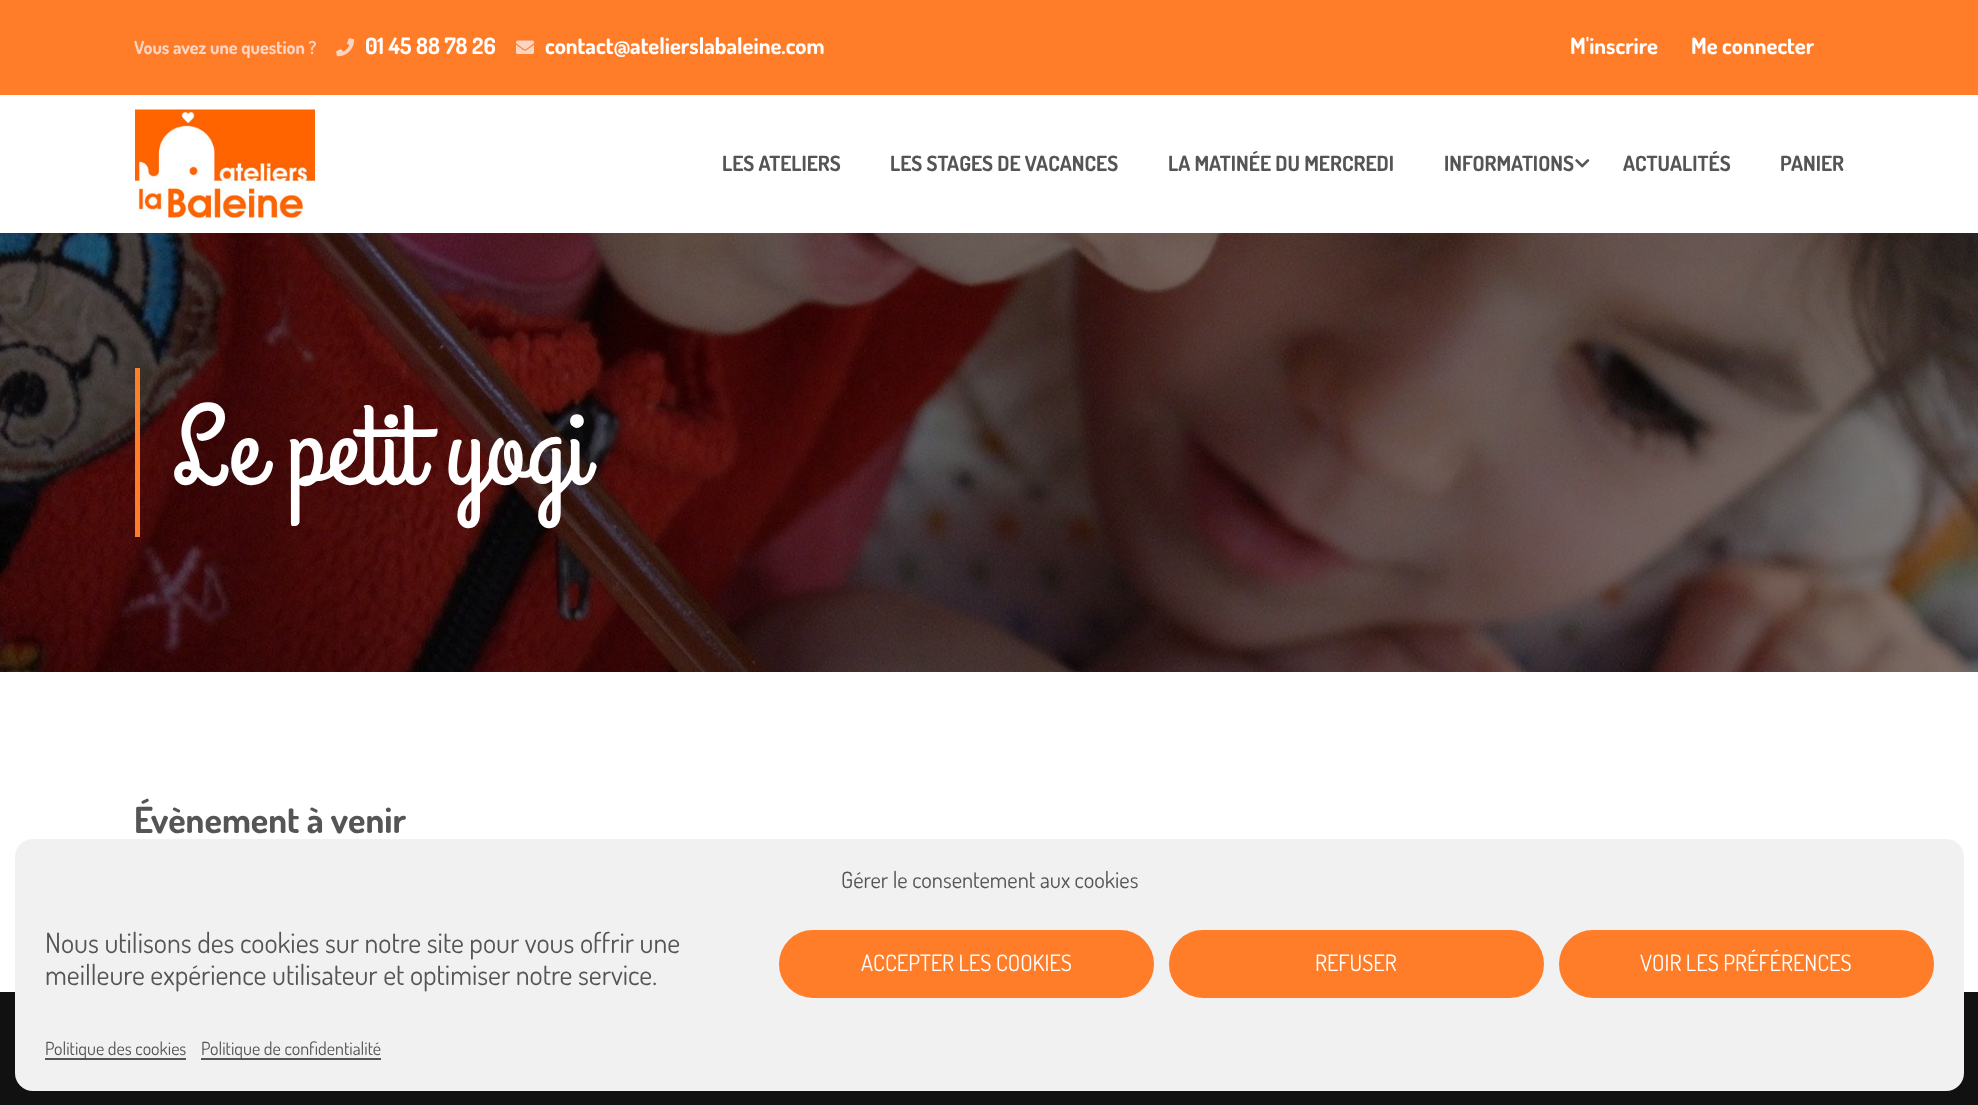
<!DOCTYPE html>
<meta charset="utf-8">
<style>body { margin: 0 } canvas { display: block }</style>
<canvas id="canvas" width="1978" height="1105"></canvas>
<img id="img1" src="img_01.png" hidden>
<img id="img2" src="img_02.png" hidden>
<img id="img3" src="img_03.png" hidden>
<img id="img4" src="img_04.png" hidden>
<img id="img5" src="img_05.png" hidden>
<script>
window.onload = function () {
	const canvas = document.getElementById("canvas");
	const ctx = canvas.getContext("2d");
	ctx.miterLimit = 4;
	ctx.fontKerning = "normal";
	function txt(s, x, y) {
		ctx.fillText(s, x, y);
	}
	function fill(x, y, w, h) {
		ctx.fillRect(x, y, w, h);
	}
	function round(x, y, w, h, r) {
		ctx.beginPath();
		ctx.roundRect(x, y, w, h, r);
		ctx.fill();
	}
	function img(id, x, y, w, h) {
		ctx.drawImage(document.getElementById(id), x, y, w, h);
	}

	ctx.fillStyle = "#FFFFFF";
	fill(0, 0, 1978, 1105);
	ctx.fillStyle = "#FF7D29";
	fill(0, 0, 1978, 95);
	img("img1", 336, 38, 18, 19);
	img("img2", 516, 40, 18, 14);
	img("img3", 135, 109, 180, 109);
	img("img4", 1575, 159, 15, 9);
	img("img5", 0, 233, 1978, 439);
	fill(135, 368, 5, 169);
	ctx.fillStyle = "#111111";
	fill(0, 992, 1978, 113);
	ctx.fillStyle = "#F1F1F1";
	round(15, 839, 1949, 252, 18);
	ctx.fillStyle = "#FF7D29";
	ctx.beginPath();
	ctx.roundRect(780, 931, 373, 66, 33);
	ctx.fill();
	ctx.strokeStyle = "#FF7D29";
	ctx.lineWidth = 2;
	ctx.stroke();
	ctx.beginPath();
	ctx.roundRect(1170, 931, 373, 66, 33);
	ctx.fill();
	ctx.stroke();
	ctx.beginPath();
	ctx.roundRect(1560, 931, 373, 66, 33);
	ctx.fill();
	ctx.stroke();
	ctx.fillStyle = "#555555";
	fill(45, 1058, 141, 2);
	fill(201, 1058, 180, 2);
	ctx.font = "bold 18px Dosis";
	ctx.fillStyle = "#FBD5C4";
	txt("Vous avez une question ?", 134, 54);
	ctx.font = "bold 22.5px Dosis";
	ctx.fillStyle = "#FFFFFF";
	txt("01 45 88 78 26", 365, 54);
	txt("contact@atelierslabaleine.com", 545, 54);
	txt("M'inscrire", 1570, 54);
	txt("Me connecter", 1691, 54);
	ctx.font = "bold 21px Dosis";
	ctx.fillStyle = "#555555";
	txt("LES ATELIERS", 722, 171);
	txt("LES STAGES DE VACANCES", 890, 171);
	txt("LA MATINÉE DU MERCREDI", 1168, 171);
	txt("INFORMATIONS", 1444, 171);
	txt("ACTUALITÉS", 1623, 171);
	txt("PANIER", 1780, 171);
	ctx.font = "112.5px Grand Hotel";
	ctx.fillStyle = "#FFFFFF";
	txt("Le petit yogi", 172, 482);
	ctx.font = "bold 36px Dosis";
	ctx.fillStyle = "#555555";
	txt("Évènement à venir", 134, 833);
	ctx.font = "22.5px Dosis";
	txt("Gérer le consentement aux cookies", 841, 888);
	ctx.font = "28px Dosis";
	txt("Nous utilisons des cookies sur notre site pour vous offrir une", 45, 953);
	txt("meilleure expérience utilisateur et optimiser notre service.", 45, 985);
	ctx.font = "22.5px Dosis";
	ctx.fillStyle = "#FFFFFF";
	txt("ACCEPTER LES COOKIES", 861, 971);
	txt("REFUSER", 1315, 971);
	txt("VOIR LES PRÉFÉRENCES", 1640, 971);
	ctx.font = "18px Dosis";
	ctx.fillStyle = "#555555";
	txt("Politique des cookies", 45, 1055);
	txt("Politique de confidentialité", 201, 1055);
};
</script>
